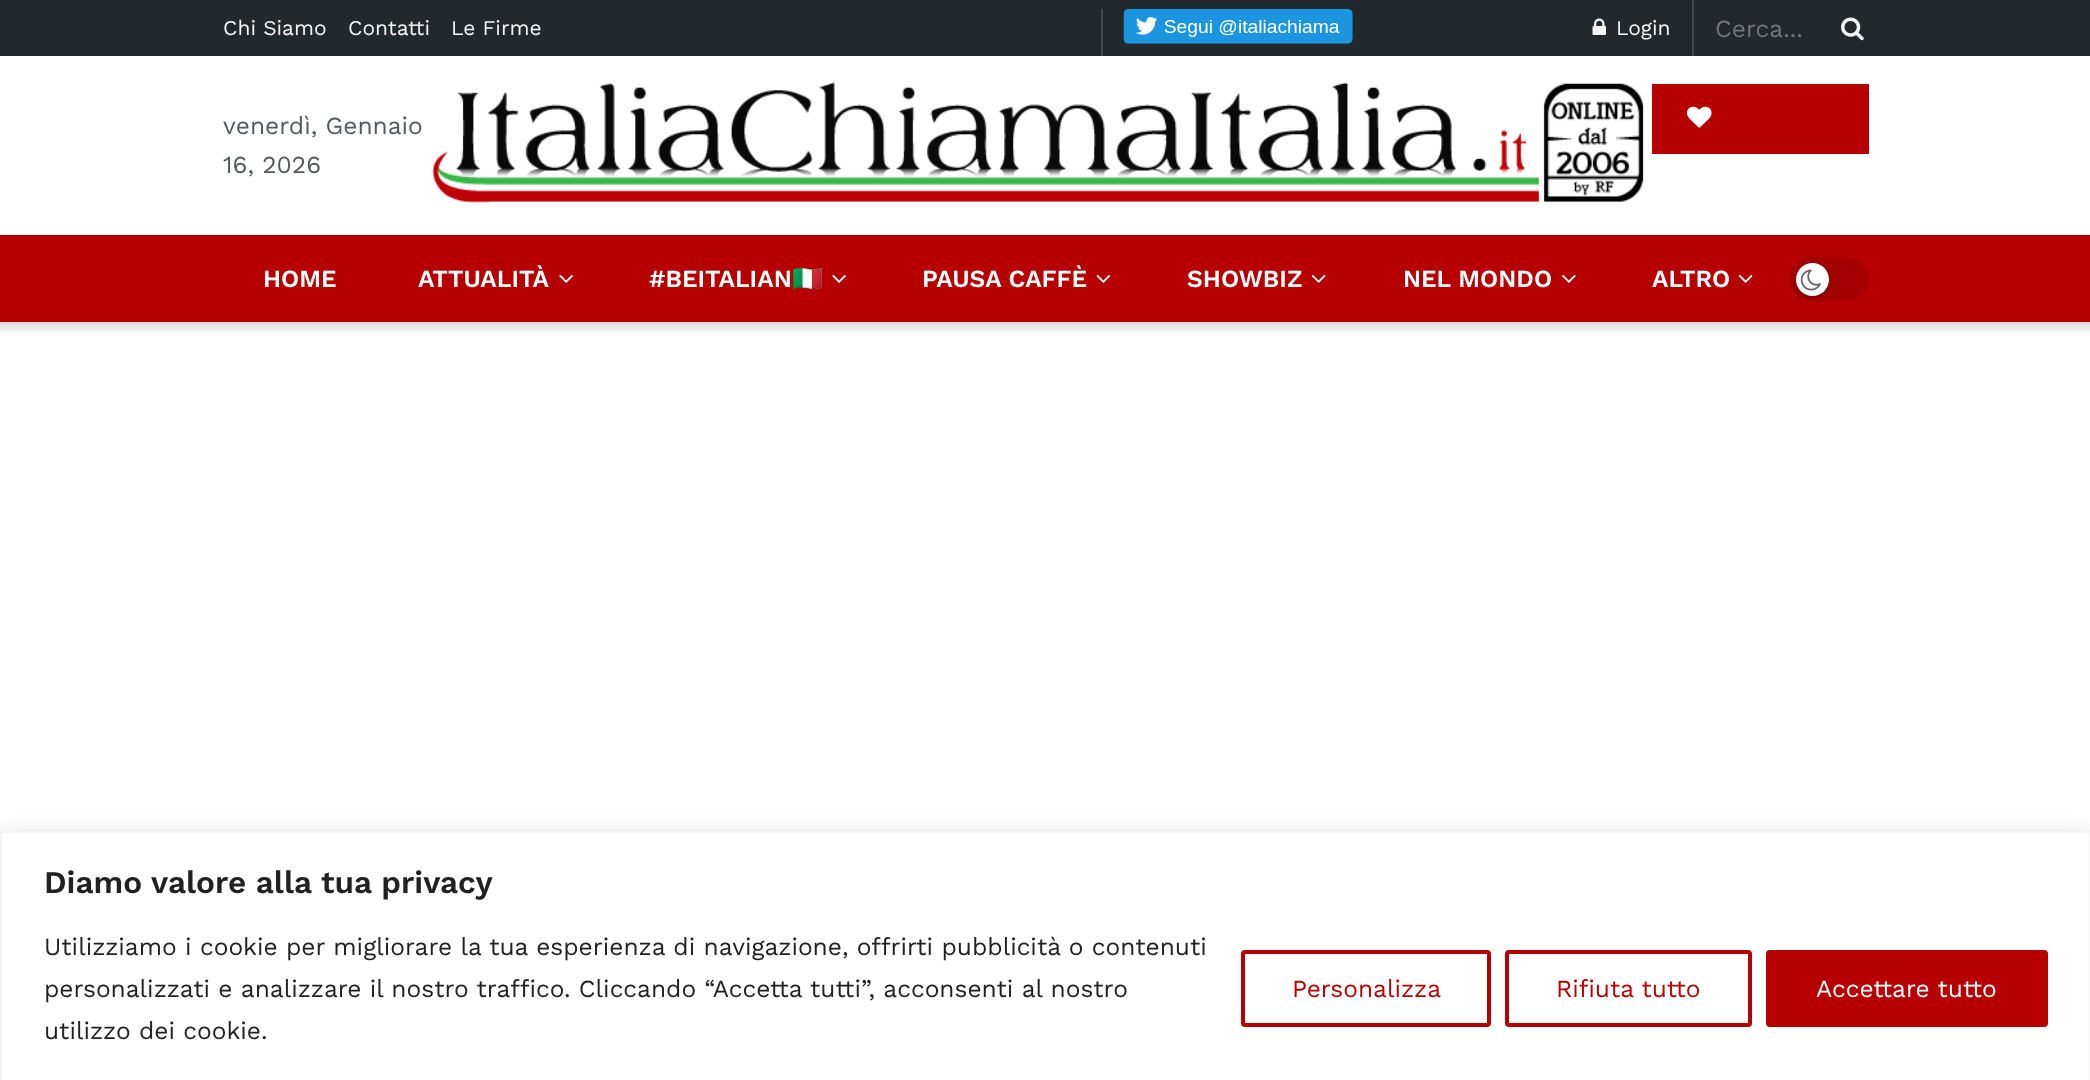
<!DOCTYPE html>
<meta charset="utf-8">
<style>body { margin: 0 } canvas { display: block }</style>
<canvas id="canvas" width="2090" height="1080"></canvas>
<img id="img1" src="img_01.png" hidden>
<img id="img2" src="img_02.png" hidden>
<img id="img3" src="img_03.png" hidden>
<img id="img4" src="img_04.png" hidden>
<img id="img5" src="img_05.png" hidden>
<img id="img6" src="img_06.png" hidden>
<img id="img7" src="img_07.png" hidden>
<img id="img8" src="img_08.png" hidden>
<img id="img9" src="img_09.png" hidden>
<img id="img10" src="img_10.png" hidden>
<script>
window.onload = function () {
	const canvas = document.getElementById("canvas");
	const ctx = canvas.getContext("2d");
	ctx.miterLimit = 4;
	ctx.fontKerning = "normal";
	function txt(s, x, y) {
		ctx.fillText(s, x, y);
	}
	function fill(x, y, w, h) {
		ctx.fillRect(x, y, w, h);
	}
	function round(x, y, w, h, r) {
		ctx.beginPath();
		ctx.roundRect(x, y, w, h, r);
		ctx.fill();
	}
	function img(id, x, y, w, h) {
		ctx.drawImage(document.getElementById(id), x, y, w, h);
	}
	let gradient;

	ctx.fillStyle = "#FFFFFF";
	fill(0, 0, 2090, 1080);
	ctx.fillStyle = "#23282D";
	fill(0, 0, 2090, 56);
	ctx.fillStyle = "#44484D";
	fill(1101, 9, 2, 47);
	img("img1", 1123, 8, 230, 36);
	fill(1692, 0, 2, 56);
	img("img2", 1592, 18, 14, 17);
	img("img3", 1841, 17, 23, 24);
	img("img4", 432, 82, 1212, 121);
	ctx.fillStyle = "#B60002";
	fill(1652, 84, 217, 70);
	img("img5", 1687, 106, 25, 22);
	fill(0, 235, 2090, 87);
	img("img6", 559, 275, 14, 8);
	img("img6", 832, 275, 14, 8);
	img("img7", 1096, 275, 15, 8);
	img("img8", 1311, 275, 15, 8);
	img("img9", 1562, 275, 14, 8);
	img("img8", 1738, 275, 15, 8);
	ctx.fillStyle = "#A40002";
	round(1790, 257, 79, 44, 22);
	ctx.fillStyle = "rgba(0, 0, 0, 0.3)";
	ctx.filter = "blur(2.5px)";
	ctx.beginPath();
	ctx.roundRect(1796, 264, 33, 34, 16.5);
	ctx.fill();
	ctx.filter = "none";
	ctx.fillStyle = "#FFFFFF";
	ctx.beginPath();
	ctx.arc(1812.5, 279.5, 16.5, 0, Math.PI * 2);
	ctx.fill();
	img("img10", 1800, 269, 21, 22);
	gradient = ctx.createLinearGradient(1046, 322, 1046, 334);
	gradient.addColorStop(0, "#D9D9D9");
	gradient.addColorStop(1, "#FFFFFF");
	ctx.fillStyle = gradient;
	fill(0, 322, 2090, 11);
	ctx.fillStyle = "rgba(172, 171, 171, 0.3)";
	ctx.filter = "blur(9px)";
	ctx.beginPath();
	ctx.rect(0, 830, 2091, 250);
	ctx.fill();
	ctx.filter = "none";
	ctx.fillStyle = "#FFFFFF";
	ctx.beginPath();
	ctx.rect(1, 832, 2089, 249);
	ctx.fill();
	ctx.strokeStyle = "#F4F4F4";
	ctx.lineWidth = 2;
	ctx.stroke();
	ctx.beginPath();
	ctx.roundRect(1243, 952, 246, 73, 2);
	ctx.strokeStyle = "#B60002";
	ctx.lineWidth = 4;
	ctx.stroke();
	ctx.beginPath();
	ctx.roundRect(1507, 952, 243, 73, 2);
	ctx.stroke();
	ctx.fillStyle = "#B60002";
	ctx.beginPath();
	ctx.roundRect(1768, 952, 278, 73, 2);
	ctx.fill();
	ctx.stroke();
	ctx.font = "21px Work Sans";
	ctx.fillStyle = "#F5F5F5";
	txt("Chi Siamo", 223, 35);
	txt("Contatti", 348, 35);
	txt("Le Firme", 451, 35);
	txt("Login", 1616, 35);
	ctx.font = "24.5px Work Sans";
	ctx.fillStyle = "#757575";
	txt("Cerca...", 1715, 37);
	ctx.fillStyle = "#53585C";
	txt("venerdì, Gennaio", 223, 134);
	txt("16, 2026", 223, 173);
	ctx.font = "600 24.5px Work Sans";
	ctx.fillStyle = "#FFFFFF";
	txt("HOME", 263, 287);
	txt("ATTUALITÀ", 418, 287);
	txt("#BEITALIAN", 649, 287);
	ctx.font = "bold 24.5px Noto Color Emoji";
	txt("🇮🇹", 792, 287);
	ctx.font = "600 24.5px Work Sans";
	txt("PAUSA CAFFÈ", 922, 287);
	txt("SHOWBIZ", 1187, 287);
	txt("NEL MONDO", 1403, 287);
	txt("ALTRO", 1652, 287);
	ctx.font = "600 31.5px Work Sans";
	ctx.fillStyle = "#212121";
	txt("Diamo valore alla tua privacy", 44, 893);
	ctx.font = "24.5px Work Sans";
	txt("Utilizziamo i cookie per migliorare la tua esperienza di navigazione, offrirti pubblicità o contenuti", 44, 955);
	txt("personalizzati e analizzare il nostro traffico. Cliccando “Accetta tutti”, acconsenti al nostro", 44, 997);
	txt("utilizzo dei cookie.", 44, 1039);
	ctx.fillStyle = "#B60002";
	txt("Personalizza", 1292, 997);
	txt("Rifiuta tutto", 1556, 997);
	ctx.fillStyle = "#FFFFFF";
	txt("Accettare tutto", 1816, 997);
};
</script>
